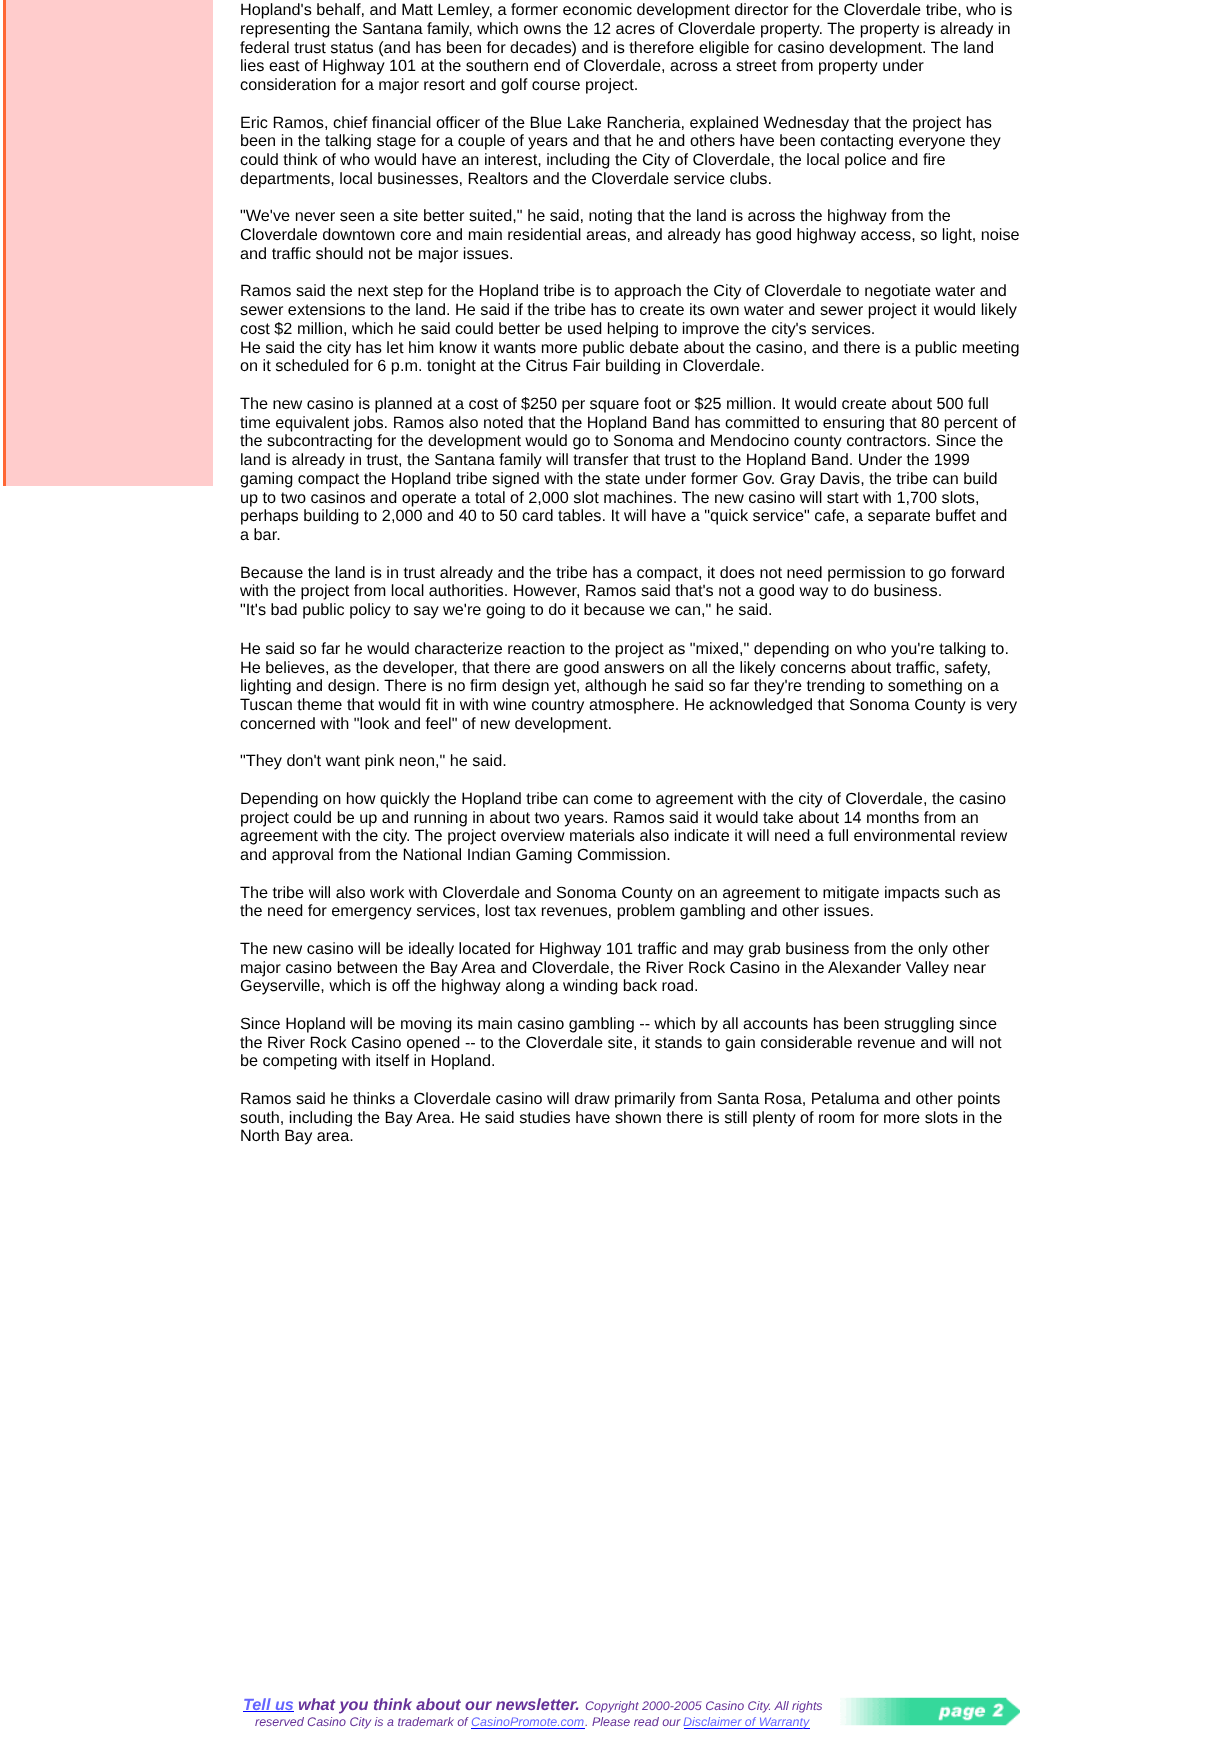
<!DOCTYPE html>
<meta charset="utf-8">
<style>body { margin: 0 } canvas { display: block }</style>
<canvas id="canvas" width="1223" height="1758"></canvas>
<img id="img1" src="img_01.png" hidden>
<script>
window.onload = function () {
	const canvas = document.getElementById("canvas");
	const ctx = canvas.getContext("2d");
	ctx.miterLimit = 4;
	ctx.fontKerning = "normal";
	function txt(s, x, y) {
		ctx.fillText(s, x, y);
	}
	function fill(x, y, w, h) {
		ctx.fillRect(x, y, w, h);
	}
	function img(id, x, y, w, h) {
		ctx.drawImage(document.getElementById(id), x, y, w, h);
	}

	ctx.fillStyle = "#FFFFFF";
	fill(0, 0, 1223, 1758);
	ctx.fillStyle = "#FF6633";
	fill(3, 0, 3, 486);
	ctx.fillStyle = "#FFCCCC";
	fill(6, 0, 207, 486);
	ctx.fillStyle = "#0000FF";
	fill(243, 1711, 51, 1);
	fill(471, 1728, 114, 1);
	fill(684, 1728, 126, 1);
	img("img1", 840, 1697, 180, 29);
	ctx.font = "16.25px Liberation Sans";
	ctx.fillStyle = "#000000";
	txt("Hopland's behalf, and Matt Lemley, a former economic development director for the Cloverdale tribe, who is", 240, 15);
	txt("representing the Santana family, which owns the 12 acres of Cloverdale property. The property is already in", 240, 34);
	txt("federal trust status (and has been for decades) and is therefore eligible for casino development. The land", 240, 53);
	txt("lies east of Highway 101 at the southern end of Cloverdale, across a street from property under", 240, 71);
	txt("consideration for a major resort and golf course project.", 240, 90);
	txt("Eric Ramos, chief financial officer of the Blue Lake Rancheria, explained Wednesday that the project has", 240, 128);
	txt("been in the talking stage for a couple of years and that he and others have been contacting everyone they", 240, 146);
	txt("could think of who would have an interest, including the City of Cloverdale, the local police and fire", 240, 165);
	txt("departments, local businesses, Realtors and the Cloverdale service clubs.", 240, 184);
	txt("\"We've never seen a site better suited,\" he said, noting that the land is across the highway from the", 240, 221);
	txt("Cloverdale downtown core and main residential areas, and already has good highway access, so light, noise", 240, 240);
	txt("and traffic should not be major issues.", 240, 259);
	txt("Ramos said the next step for the Hopland tribe is to approach the City of Cloverdale to negotiate water and", 240, 296);
	txt("sewer extensions to the land. He said if the tribe has to create its own water and sewer project it would likely", 240, 315);
	txt("cost $2 million, which he said could better be used helping to improve the city's services.", 240, 334);
	txt("He said the city has let him know it wants more public debate about the casino, and there is a public meeting", 240, 353);
	txt("on it scheduled for 6 p.m. tonight at the Citrus Fair building in Cloverdale.", 240, 371);
	txt("The new casino is planned at a cost of $250 per square foot or $25 million. It would create about 500 full", 240, 409);
	txt("time equivalent jobs. Ramos also noted that the Hopland Band has committed to ensuring that 80 percent of", 240, 428);
	txt("the subcontracting for the development would go to Sonoma and Mendocino county contractors. Since the", 240, 446);
	txt("land is already in trust, the Santana family will transfer that trust to the Hopland Band. Under the 1999", 240, 465);
	txt("gaming compact the Hopland tribe signed with the state under former Gov. Gray Davis, the tribe can build", 240, 484);
	txt("up to two casinos and operate a total of 2,000 slot machines. The new casino will start with 1,700 slots,", 240, 503);
	txt("perhaps building to 2,000 and 40 to 50 card tables. It will have a \"quick service\" cafe, a separate buffet and", 240, 521);
	txt("a bar.", 240, 540);
	txt("Because the land is in trust already and the tribe has a compact, it does not need permission to go forward", 240, 578);
	txt("with the project from local authorities. However, Ramos said that's not a good way to do business.", 240, 596);
	txt("\"It's bad public policy to say we're going to do it because we can,\" he said.", 240, 615);
	txt("He said so far he would characterize reaction to the project as \"mixed,\" depending on who you're talking to.", 240, 654);
	txt("He believes, as the developer, that there are good answers on all the likely concerns about traffic, safety,", 240, 673);
	txt("lighting and design. There is no firm design yet, although he said so far they're trending to something on a", 240, 691);
	txt("Tuscan theme that would fit in with wine country atmosphere. He acknowledged that Sonoma County is very", 240, 710);
	txt("concerned with \"look and feel\" of new development.", 240, 729);
	txt("\"They don't want pink neon,\" he said.", 240, 766);
	txt("Depending on how quickly the Hopland tribe can come to agreement with the city of Cloverdale, the casino", 240, 804);
	txt("project could be up and running in about two years. Ramos said it would take about 14 months from an", 240, 823);
	txt("agreement with the city. The project overview materials also indicate it will need a full environmental review", 240, 841);
	txt("and approval from the National Indian Gaming Commission.", 240, 860);
	txt("The tribe will also work with Cloverdale and Sonoma County on an agreement to mitigate impacts such as", 240, 898);
	txt("the need for emergency services, lost tax revenues, problem gambling and other issues.", 240, 916);
	txt("The new casino will be ideally located for Highway 101 traffic and may grab business from the only other", 240, 954);
	txt("major casino between the Bay Area and Cloverdale, the River Rock Casino in the Alexander Valley near", 240, 973);
	txt("Geyserville, which is off the highway along a winding back road.", 240, 991);
	txt("Since Hopland will be moving its main casino gambling -- which by all accounts has been struggling since", 240, 1029);
	txt("the River Rock Casino opened -- to the Cloverdale site, it stands to gain considerable revenue and will not", 240, 1048);
	txt("be competing with itself in Hopland.", 240, 1066);
	txt("Ramos said he thinks a Cloverdale casino will draw primarily from Santa Rosa, Petaluma and other points", 240, 1104);
	txt("south, including the Bay Area. He said studies have shown there is still plenty of room for more slots in the", 240, 1123);
	txt("North Bay area.", 240, 1141);
	ctx.font = "italic bold 16.25px Liberation Sans";
	ctx.fillStyle = "#6666FF";
	txt("Tell us", 243, 1710);
	ctx.fillStyle = "#663399";
	txt("what you think about our newsletter.", 298, 1710);
	ctx.font = "italic 12.5px Liberation Sans";
	txt("Copyright 2000-2005 Casino City. All rights", 585, 1710);
	txt("reserved Casino City is a trademark of", 255, 1726);
	ctx.fillStyle = "#6666FF";
	txt("CasinoPromote.com", 471, 1726);
	ctx.fillStyle = "#663399";
	txt(". Please read our", 585, 1726);
	ctx.fillStyle = "#6666FF";
	txt("Disclaimer of Warranty", 683, 1726);
};
</script>
